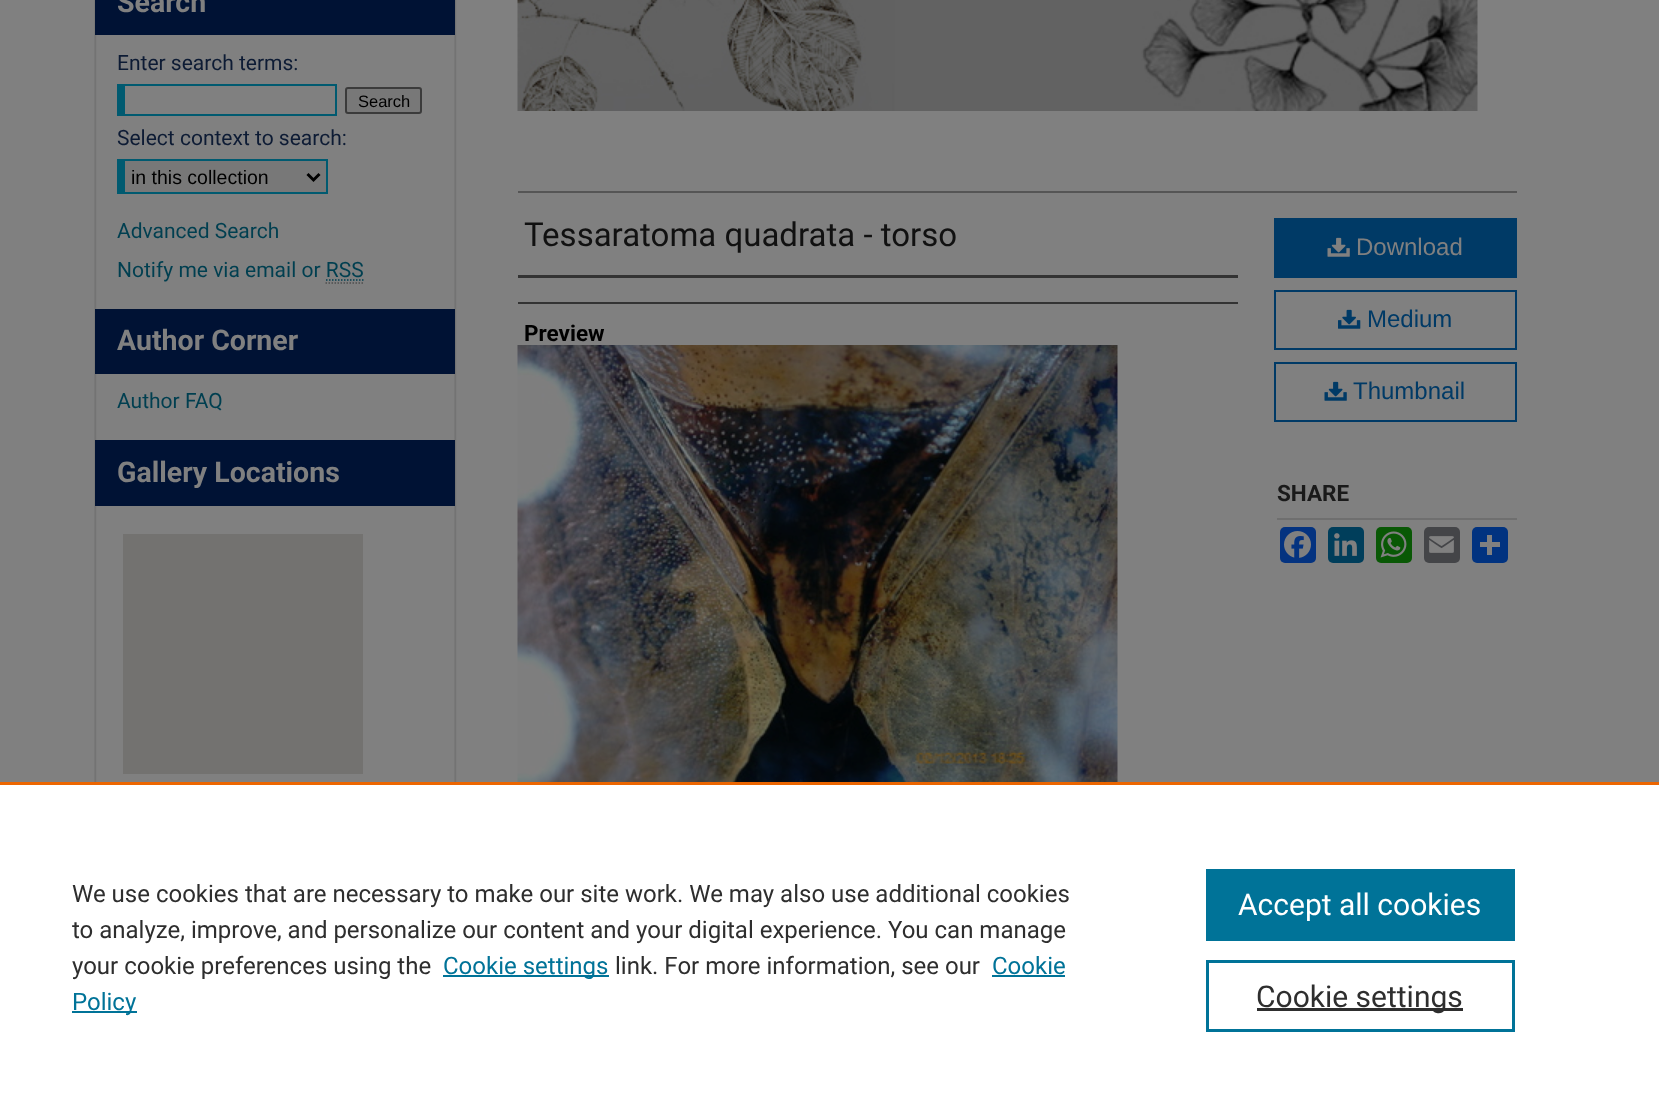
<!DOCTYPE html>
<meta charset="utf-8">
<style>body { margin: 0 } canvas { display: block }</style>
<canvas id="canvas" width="1659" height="1111"></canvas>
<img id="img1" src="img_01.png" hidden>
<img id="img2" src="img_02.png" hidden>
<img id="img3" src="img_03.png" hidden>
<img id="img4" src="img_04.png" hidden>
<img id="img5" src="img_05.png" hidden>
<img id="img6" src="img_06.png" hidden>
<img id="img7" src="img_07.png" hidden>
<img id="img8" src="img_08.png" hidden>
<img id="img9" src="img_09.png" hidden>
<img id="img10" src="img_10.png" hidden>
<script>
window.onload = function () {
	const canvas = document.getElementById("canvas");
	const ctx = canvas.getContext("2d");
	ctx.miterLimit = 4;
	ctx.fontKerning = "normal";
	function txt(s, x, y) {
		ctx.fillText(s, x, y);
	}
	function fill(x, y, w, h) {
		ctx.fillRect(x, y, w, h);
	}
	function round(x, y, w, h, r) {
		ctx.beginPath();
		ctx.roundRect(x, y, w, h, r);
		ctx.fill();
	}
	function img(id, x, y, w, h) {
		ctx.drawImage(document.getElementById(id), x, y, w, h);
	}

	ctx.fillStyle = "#808080";
	fill(0, 0, 1659, 1111);
	img("img1", 94, 0, 363, 782);
	ctx.fillStyle = "#001234";
	fill(95, 0, 360, 35);
	ctx.fillStyle = "#005A70";
	fill(117, 84, 219, 2);
	fill(335, 84, 2, 32);
	fill(117, 114, 219, 2);
	fill(117, 84, 8, 32);
	ctx.fillStyle = "#787878";
	ctx.beginPath();
	ctx.roundRect(346, 88, 75, 25, 2);
	ctx.fill();
	ctx.strokeStyle = "#3B3B3B";
	ctx.lineWidth = 2;
	ctx.stroke();
	fill(125, 161, 201, 31);
	ctx.fillStyle = "#005A70";
	fill(117, 159, 210, 2);
	fill(326, 159, 2, 35);
	fill(117, 192, 210, 2);
	fill(117, 159, 8, 35);
	ctx.beginPath();
	ctx.moveTo(307.5, 174);
	ctx.lineTo(313.5, 180);
	ctx.lineTo(319.5, 174);
	ctx.strokeStyle = "#000000";
	ctx.lineWidth = 3;
	ctx.stroke();
	ctx.beginPath();
	ctx.moveTo(326, 280);
	ctx.lineTo(363.5, 280);
	ctx.strokeStyle = "#003F50";
	ctx.lineWidth = 1.5;
	ctx.setLineDash([1.5, 1.5]);
	ctx.stroke();
	ctx.beginPath();
	ctx.moveTo(325.5, 283);
	ctx.lineTo(363, 283);
	ctx.strokeStyle = "#4D4D4D";
	ctx.stroke();
	ctx.fillStyle = "#001234";
	fill(95, 309, 360, 65);
	fill(95, 440, 360, 66);
	ctx.fillStyle = "#737270";
	fill(123, 534, 240, 240);
	img("img2", 517, 0, 961, 111);
	ctx.fillStyle = "#555555";
	fill(518, 191, 999, 2);
	ctx.fillStyle = "#333333";
	fill(518, 275, 720, 3);
	fill(518, 302, 720, 2);
	img("img3", 517, 345, 601, 437);
	ctx.fillStyle = "#003A66";
	fill(1274, 218, 243, 60);
	img("img4", 1327, 237, 23, 20);
	ctx.strokeStyle = "#003A66";
	ctx.lineWidth = 2;
	ctx.setLineDash([]);
	ctx.strokeRect(1275, 291, 241, 58);
	img("img5", 1338, 309, 23, 20);
	ctx.strokeRect(1275, 363, 241, 58);
	img("img6", 1324, 381, 23, 20);
	ctx.fillStyle = "#6F6F6F";
	fill(1277, 518, 240, 2);
	ctx.fillStyle = "#043380";
	round(1280, 527, 36, 36, 5);
	img("img7", 1284, 531, 27, 27);
	ctx.fillStyle = "#003E5B";
	round(1328, 527, 36, 36, 5);
	img("img8", 1334, 533, 23, 23);
	ctx.fillStyle = "#095805";
	round(1376, 527, 36, 36, 5);
	img("img9", 1380, 531, 27, 27);
	ctx.fillStyle = "#444548";
	round(1424, 527, 36, 36, 5);
	img("img10", 1429, 536, 25, 17);
	ctx.fillStyle = "#013380";
	round(1472, 527, 36, 36, 5);
	ctx.fillStyle = "#808080";
	fill(1487, 535, 5, 20);
	fill(1480, 542, 20, 5);
	ctx.fillStyle = "#FFFFFF";
	fill(0, 785, 1659, 326);
	ctx.fillStyle = "#EB6500";
	fill(0, 782, 1659, 3);
	ctx.fillStyle = "#007398";
	fill(443, 975, 166, 2);
	fill(992, 975, 73, 2);
	fill(72, 1011, 65, 2);
	fill(1206, 869, 309, 72);
	ctx.strokeStyle = "#007398";
	ctx.lineWidth = 3;
	ctx.strokeRect(1207.5, 961.5, 306, 69);
	ctx.fillStyle = "#2E2E2E";
	fill(1257, 1008, 206, 3);
	ctx.font = "bold 28.5px Roboto";
	ctx.fillStyle = "#808080";
	txt("Search", 117, 12);
	ctx.font = "21px Roboto";
	ctx.fillStyle = "#0D1B34";
	txt("Enter search terms:", 117, 70);
	ctx.font = "16.5px Liberation Sans";
	ctx.fillStyle = "#000000";
	txt("Search", 358, 107);
	ctx.font = "21px Roboto";
	ctx.fillStyle = "#0D1B34";
	txt("Select context to search:", 117, 145);
	ctx.font = "19.5px Liberation Sans";
	ctx.fillStyle = "#000000";
	txt("in this collection", 131, 184);
	ctx.font = "21px Roboto";
	ctx.fillStyle = "#003F50";
	txt("Advanced Search", 117, 238);
	txt("Notify me via email or RSS", 117, 277);
	ctx.font = "bold 28.5px Roboto";
	ctx.fillStyle = "#808080";
	txt("Author Corner", 117, 350);
	ctx.font = "21px Roboto";
	ctx.fillStyle = "#003F50";
	txt("Author FAQ", 117, 408);
	ctx.font = "bold 28.5px Roboto";
	ctx.fillStyle = "#808080";
	txt("Gallery Locations", 117, 482);
	ctx.font = "33px Roboto";
	ctx.fillStyle = "#111111";
	txt("Tessaratoma quadrata - torso", 524, 246);
	ctx.font = "bold 22.5px Roboto";
	ctx.fillStyle = "#000000";
	txt("Preview", 524, 341);
	ctx.font = "24px Liberation Sans";
	ctx.fillStyle = "#808080";
	txt("Download", 1356, 255);
	ctx.fillStyle = "#003A66";
	txt("Medium", 1367, 327);
	txt("Thumbnail", 1353, 399);
	ctx.font = "bold 22.5px Roboto";
	ctx.fillStyle = "#1A1A1A";
	txt("SHARE", 1277, 501);
	ctx.font = "24px Roboto";
	ctx.fillStyle = "#2E2E2E";
	txt("We use cookies that are necessary to make our site work. We may also use additional cookies", 72, 902);
	txt("to analyze, improve, and personalize our content and your digital experience. You can manage", 72, 938);
	txt("your cookie preferences using the", 72, 974);
	ctx.fillStyle = "#007398";
	txt("Cookie settings", 443, 974);
	ctx.fillStyle = "#2E2E2E";
	txt("link. For more information, see our", 615, 974);
	ctx.fillStyle = "#007398";
	txt("Cookie", 992, 974);
	txt("Policy", 72, 1010);
	ctx.font = "30px Roboto";
	ctx.fillStyle = "#FFFFFF";
	txt("Accept all cookies", 1238, 915);
	ctx.fillStyle = "#2E2E2E";
	txt("Cookie settings", 1256, 1007);
};
</script>
